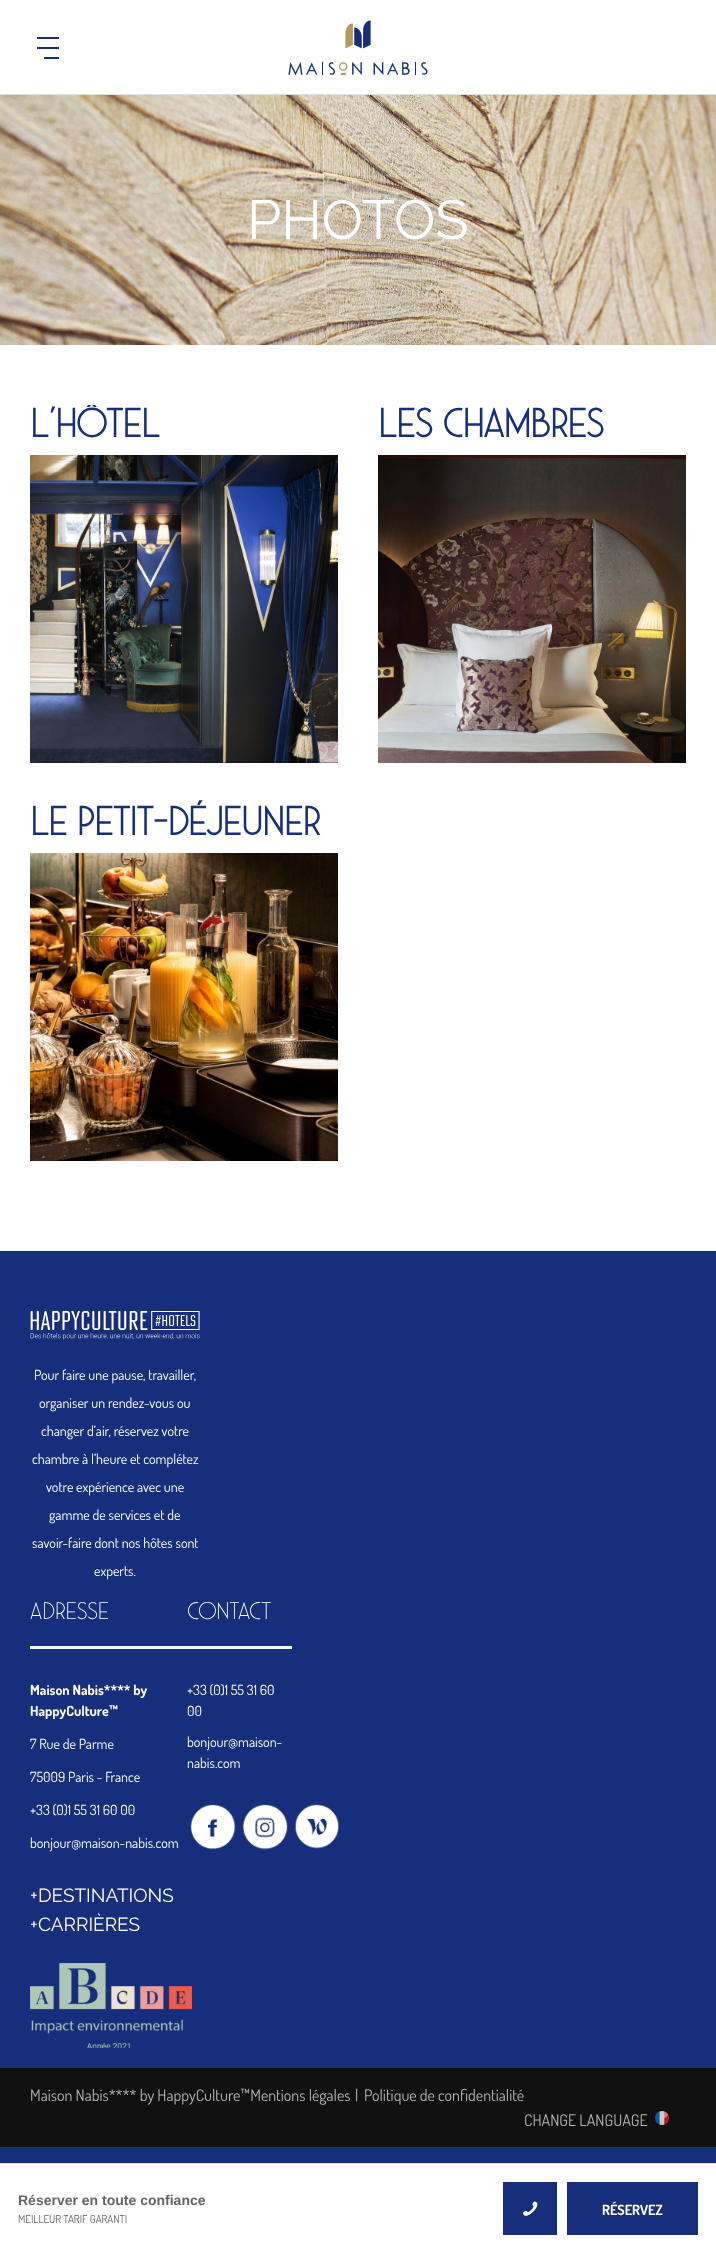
<!DOCTYPE html>
<meta charset="utf-8">
<style>body { margin: 0 } canvas { display: block }</style>
<canvas id="canvas" width="716" height="2253"></canvas>
<img id="img1" src="img_01.png" hidden>
<img id="img2" src="img_02.png" hidden>
<img id="img3" src="img_03.png" hidden>
<img id="img4" src="img_04.png" hidden>
<img id="img5" src="img_05.png" hidden>
<img id="img6" src="img_06.png" hidden>
<img id="img7" src="img_07.png" hidden>
<img id="img8" src="img_08.png" hidden>
<img id="img9" src="img_09.png" hidden>
<img id="img10" src="img_10.png" hidden>
<img id="img11" src="img_11.png" hidden>
<img id="img12" src="img_12.png" hidden>
<script>
window.onload = function () {
	const canvas = document.getElementById("canvas");
	const ctx = canvas.getContext("2d");
	ctx.miterLimit = 4;
	ctx.fontKerning = "normal";
	function txt(s, x, y) {
		ctx.fillText(s, x, y);
	}
	function fill(x, y, w, h) {
		ctx.fillRect(x, y, w, h);
	}
	function img(id, x, y, w, h) {
		ctx.drawImage(document.getElementById(id), x, y, w, h);
	}

	ctx.fillStyle = "#FFFFFF";
	fill(0, 0, 716, 2253);
	ctx.fillStyle = "#E1E1E1";
	fill(0, 94, 716, 1);
	img("img1", 288, 20, 140, 55);
	ctx.fillStyle = "#162E7B";
	fill(37, 37, 22, 2);
	fill(37, 47, 22, 2);
	fill(44, 57, 15, 2);
	img("img2", 0, 95, 716, 250);
	img("img3", 30, 455, 308, 308);
	img("img4", 378, 455, 308, 308);
	img("img5", 30, 853, 308, 308);
	fill(0, 1251, 716, 912);
	img("img6", 30, 1311, 170, 29);
	ctx.fillStyle = "#FFFFFF";
	fill(30, 1646, 262, 3);
	img("img7", 190, 1804, 46, 46);
	img("img8", 242, 1804, 46, 46);
	img("img9", 295, 1804, 44, 45);
	img("img10", 30, 1963, 162, 85);
	ctx.fillStyle = "#111111";
	fill(0, 2068, 716, 79);
	img("img11", 655, 2111, 14, 14);
	ctx.fillStyle = "#DFDFDF";
	fill(0, 2163, 716, 1);
	ctx.fillStyle = "#162E7B";
	fill(503, 2182, 54, 53);
	img("img12", 523, 2201, 15, 15);
	fill(567, 2182, 131, 53);
	ctx.font = "55px Raleway";
	ctx.fillStyle = "#FFFFFF";
	txt("PHOTOS", 247, 239);
	ctx.save();
	ctx.beginPath();
	ctx.rect(30, 405, 656, 756);
	ctx.clip();
	ctx.font = "bold 40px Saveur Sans";
	ctx.fillStyle = "#162E7B";
	txt("L'HÔTEL", 30, 437);
	ctx.restore();
	ctx.font = "bold 40px Saveur Sans";
	ctx.fillStyle = "#162E7B";
	txt("LES CHAMBRES", 378, 437);
	txt("LE PETIT-DÉJEUNER", 30, 835);
	ctx.font = "14px Dosis";
	ctx.fillStyle = "#FFFFFF";
	txt("Pour faire une pause, travailler,", 34, 1380);
	txt("organiser un rendez-vous ou", 39, 1408);
	txt("changer d’air, réservez votre", 41, 1436);
	txt("chambre à l’heure et complétez", 32, 1464);
	txt("votre expérience avec une", 46, 1492);
	txt("gamme de services et de", 49, 1520);
	txt("savoir-faire dont nos hôtes sont", 32, 1548);
	txt("experts.", 94, 1576);
	ctx.font = "300 24px Saveur Sans";
	txt("Adresse", 30, 1619);
	ctx.font = "bold 14px Dosis";
	txt("Maison Nabis**** by", 30, 1695);
	txt("HappyCulture™", 30, 1716);
	ctx.font = "14px Dosis";
	txt("7 Rue de Parme", 30, 1749);
	txt("75009 Paris - France", 30, 1782);
	txt("+33 (0)1 55 31 60 00", 30, 1815);
	txt("bonjour@maison-nabis.com", 30, 1848);
	ctx.font = "300 24px Saveur Sans";
	txt("Contact", 187, 1619);
	ctx.font = "14px Dosis";
	txt("+33 (0)1 55 31 60", 187, 1695);
	txt("00", 187, 1716);
	txt("bonjour@maison-", 187, 1747);
	txt("nabis.com", 187, 1768);
	ctx.font = "19px Raleway";
	txt("+DESTINATIONS", 30, 1902);
	txt("+CARRIÈRES", 30, 1931);
	ctx.font = "16px Dosis";
	ctx.fillStyle = "#B5B5B5";
	txt("Maison Nabis**** by HappyCulture™Mentions légales", 30, 2101);
	txt("|", 355, 2101);
	txt("Politique de confidentialité", 364, 2101);
	txt("CHANGE LANGUAGE", 524, 2126);
	ctx.font = "bold 14px Liberation Sans";
	ctx.fillStyle = "#656565";
	txt("Réserver en toute confiance", 18, 2205);
	ctx.font = "11px Dosis";
	txt("MEILLEUR TARIF GARANTI", 18, 2223);
	ctx.font = "bold 14px Dosis";
	ctx.fillStyle = "#FFFFFF";
	txt("RÉSERVEZ", 602, 2215);
};
</script>
